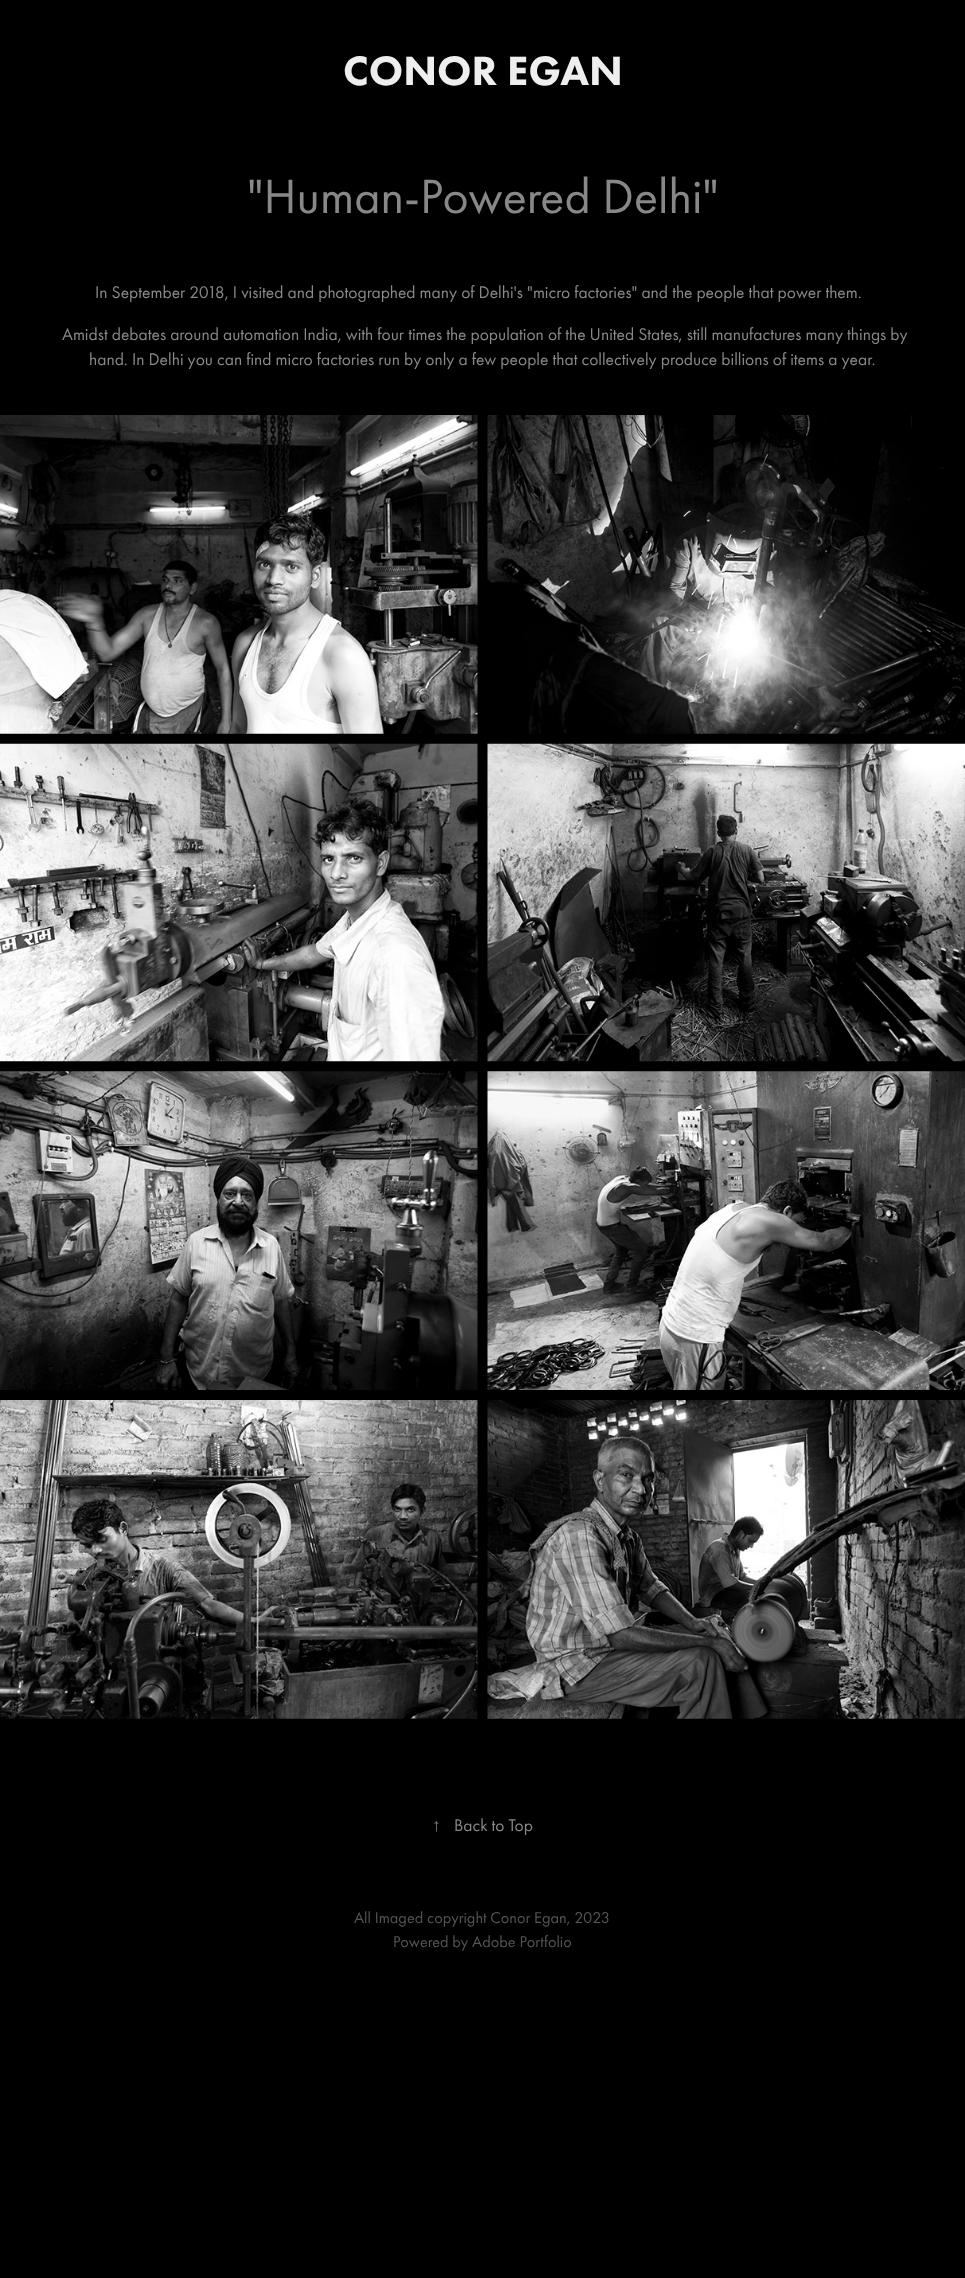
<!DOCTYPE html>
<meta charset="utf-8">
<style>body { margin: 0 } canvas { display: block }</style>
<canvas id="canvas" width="965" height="2278"></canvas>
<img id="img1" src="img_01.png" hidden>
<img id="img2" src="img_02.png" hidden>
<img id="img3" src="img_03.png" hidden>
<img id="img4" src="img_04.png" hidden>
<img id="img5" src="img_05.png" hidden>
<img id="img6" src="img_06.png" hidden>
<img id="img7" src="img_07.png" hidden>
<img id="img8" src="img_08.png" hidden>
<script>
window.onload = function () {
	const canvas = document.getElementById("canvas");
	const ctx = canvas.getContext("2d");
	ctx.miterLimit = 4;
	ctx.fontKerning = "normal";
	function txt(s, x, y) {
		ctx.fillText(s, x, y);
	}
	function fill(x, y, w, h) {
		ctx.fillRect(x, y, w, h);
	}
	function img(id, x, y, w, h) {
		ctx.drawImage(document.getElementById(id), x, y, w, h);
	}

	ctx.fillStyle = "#000000";
	fill(0, 0, 965, 2278);
	img("img1", 0, 415, 478, 319);
	img("img2", 487, 415, 478, 319);
	img("img3", 0, 743, 478, 319);
	img("img4", 487, 743, 478, 319);
	img("img5", 0, 1071, 478, 319);
	img("img6", 487, 1071, 478, 319);
	img("img7", 0, 1400, 478, 319);
	img("img8", 487, 1400, 478, 319);
	ctx.font = "900 42.5px Futura PT";
	ctx.fillStyle = "#EEEEEE";
	txt("CONOR EGAN", 343, 85);
	ctx.font = "50px Futura PT";
	ctx.fillStyle = "#888888";
	txt("\"Human-Powered Delhi\"", 247, 213);
	ctx.font = "17.5px Futura PT";
	txt("In September 2018, I visited and photographed many of Delhi's \"micro factories\" and the people that power them.", 95, 298);
	txt("Amidst debates around automation India, with four times the population of the United States, still manufactures many things by", 62, 340);
	txt("hand. In Delhi you can find micro factories run by only a few people that collectively produce billions of items a year.", 89, 365);
	ctx.font = "17.5px Liberation Serif";
	txt("↑", 432, 1831);
	ctx.font = "17.5px Futura PT";
	txt("Back to Top", 454, 1831);
	ctx.font = "16.25px Futura PT";
	ctx.fillStyle = "#555555";
	txt("All Imaged copyright Conor Egan, 2023", 354, 1923);
	txt("Powered by Adobe Portfolio", 393, 1947);
};
</script>
